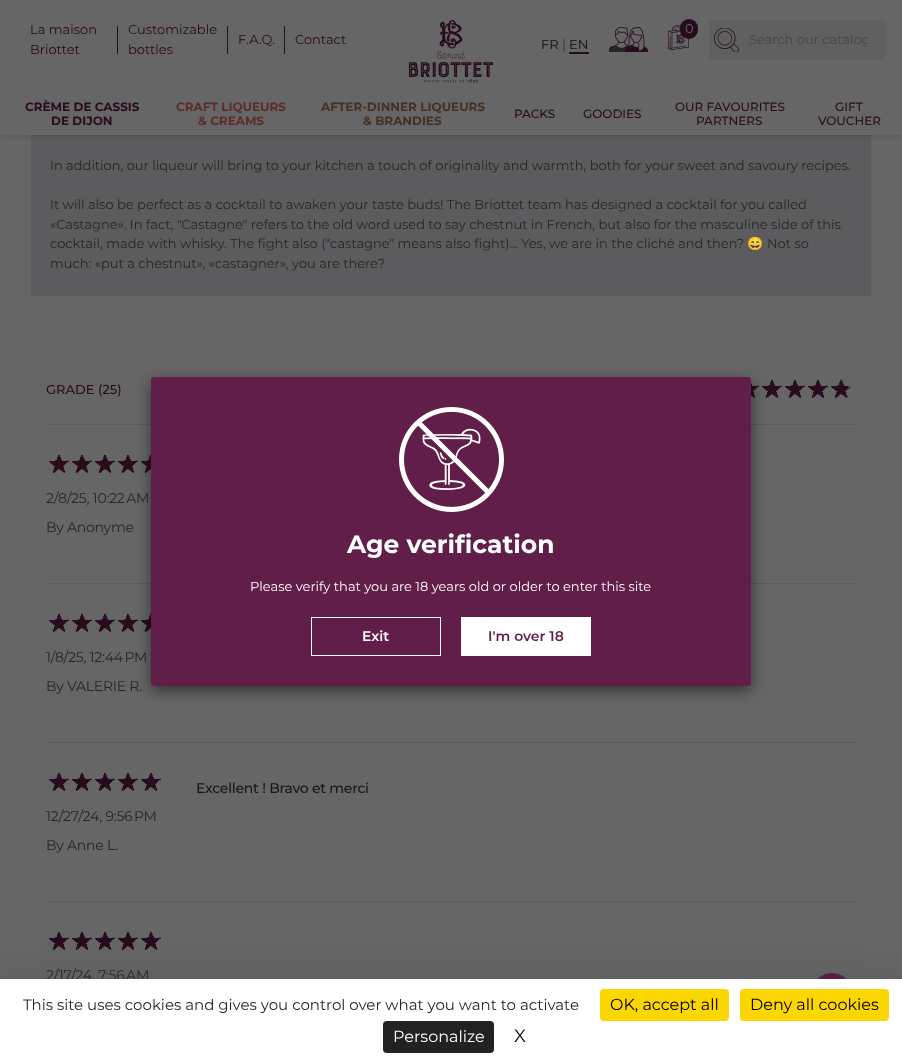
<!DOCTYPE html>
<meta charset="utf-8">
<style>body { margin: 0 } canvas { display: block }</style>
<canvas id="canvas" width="902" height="1063"></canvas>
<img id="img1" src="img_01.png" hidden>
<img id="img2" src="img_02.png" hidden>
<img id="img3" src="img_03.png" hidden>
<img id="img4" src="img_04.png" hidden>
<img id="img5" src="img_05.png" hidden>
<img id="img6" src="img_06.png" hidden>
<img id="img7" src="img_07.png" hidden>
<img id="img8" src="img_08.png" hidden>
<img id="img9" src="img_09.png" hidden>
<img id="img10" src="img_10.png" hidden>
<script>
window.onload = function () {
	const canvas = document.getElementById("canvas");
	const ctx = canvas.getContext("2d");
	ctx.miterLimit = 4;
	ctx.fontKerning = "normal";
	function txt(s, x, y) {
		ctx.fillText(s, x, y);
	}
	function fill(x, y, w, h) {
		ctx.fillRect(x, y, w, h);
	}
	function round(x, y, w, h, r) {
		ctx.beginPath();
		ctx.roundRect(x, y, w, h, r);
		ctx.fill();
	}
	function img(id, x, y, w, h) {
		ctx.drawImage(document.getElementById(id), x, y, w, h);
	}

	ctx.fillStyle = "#666666";
	fill(0, 0, 902, 1063);
	ctx.fillStyle = "#5C5C5E";
	fill(31, 135, 840, 161);
	ctx.fillStyle = "rgba(0, 0, 0, 0.11)";
	ctx.filter = "blur(2.5px)";
	ctx.beginPath();
	ctx.rect(0, 2, 902, 135);
	ctx.fill();
	ctx.filter = "none";
	ctx.fillStyle = "#666666";
	fill(0, 0, 902, 135);
	ctx.fillStyle = "#260C1D";
	fill(117, 26, 1, 28);
	fill(227, 26, 1, 28);
	fill(284, 26, 1, 28);
	img("img1", 409, 20, 84, 63);
	fill(569, 52, 20, 2);
	img("img2", 609, 27, 39, 25);
	img("img3", 668, 25, 21, 25);
	round(680, 19, 18, 20, 9);
	ctx.fillStyle = "#606060";
	round(709, 20, 178, 40, 5);
	img("img4", 714, 28, 25, 24);
	ctx.fillStyle = "#5C5C5E";
	fill(46, 424, 810, 1);
	img("img5", 751, 382, 8, 16);
	img("img6", 762, 379, 20, 19);
	img("img6", 785, 379, 20, 19);
	img("img6", 808, 379, 20, 19);
	img("img7", 831, 379, 17, 19);
	img("img8", 848, 386, 3, 12);
	fill(46, 583, 810, 1);
	img("img6", 49, 454, 20, 19);
	img("img6", 72, 454, 20, 19);
	img("img6", 95, 454, 20, 19);
	img("img6", 118, 454, 20, 19);
	img("img9", 141, 454, 10, 19);
	fill(46, 742, 810, 1);
	img("img6", 49, 613, 20, 19);
	img("img6", 72, 613, 20, 19);
	img("img6", 95, 613, 20, 19);
	img("img6", 118, 613, 20, 19);
	img("img9", 141, 613, 10, 19);
	fill(46, 901, 810, 1);
	img("img6", 49, 772, 20, 19);
	img("img6", 72, 772, 20, 19);
	img("img6", 95, 772, 20, 19);
	img("img6", 118, 772, 20, 19);
	img("img6", 141, 772, 20, 19);
	img("img6", 49, 931, 20, 19);
	img("img6", 72, 931, 20, 19);
	img("img6", 95, 931, 20, 19);
	img("img6", 118, 931, 20, 19);
	img("img6", 141, 931, 20, 19);
	ctx.fillStyle = "rgba(0, 0, 0, 0.5)";
	ctx.filter = "blur(7.5px)";
	ctx.beginPath();
	ctx.roundRect(151, 382, 600, 309, 3);
	ctx.fill();
	ctx.filter = "none";
	ctx.fillStyle = "#601E49";
	round(151, 377, 600, 309, 3);
	img("img10", 399, 407, 105, 105);
	ctx.strokeStyle = "#FFFFFF";
	ctx.strokeRect(311.5, 617.5, 129, 38);
	ctx.fillStyle = "#FFFFFF";
	fill(461, 617, 130, 39);
	ctx.fillStyle = "#601E49";
	ctx.beginPath();
	ctx.arc(832, 993, 20, 0, Math.PI * 2);
	ctx.fill();
	ctx.fillStyle = "rgba(0, 0, 0, 0.25)";
	ctx.filter = "blur(30px)";
	ctx.beginPath();
	ctx.rect(0, 999, 902, 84);
	ctx.fill();
	ctx.filter = "none";
	ctx.font = "13px Montserrat";
	ctx.fillStyle = "#260C1D";
	txt("La maison", 30, 34);
	txt("Briottet", 30, 54);
	txt("Customizable", 128, 34);
	txt("bottles", 128, 54);
	txt("F.A.Q.", 238, 44);
	txt("Contact", 295, 44);
	ctx.fillStyle = "#0E0E0E";
	txt("FR", 541, 49);
	ctx.fillStyle = "#313131";
	txt("|", 562, 49);
	ctx.fillStyle = "#0E0E0E";
	txt("EN", 569, 49);
	ctx.fillStyle = "#666666";
	txt("0", 685, 33);
	ctx.save();
	ctx.beginPath();
	ctx.rect(749, 31, 118, 16);
	ctx.clip();
	ctx.fillStyle = "#474747";
	txt("Search our catalog", 749, 44);
	ctx.restore();
	ctx.font = "bold 12px Montserrat";
	ctx.fillStyle = "#260C1D";
	txt("CRÈME DE CASSIS", 25, 111);
	txt("DE DIJON", 51, 125);
	ctx.fillStyle = "#5E2C28";
	txt("CRAFT LIQUEURS", 176, 111);
	txt("& CREAMS", 198, 125);
	ctx.fillStyle = "#423124";
	txt("AFTER-DINNER LIQUEURS", 321, 111);
	txt("& BRANDIES", 363, 125);
	ctx.font = "500 12px Montserrat";
	ctx.fillStyle = "#260C1D";
	txt("PACKS", 514, 118);
	txt("GOODIES", 583, 118);
	txt("OUR FAVOURITES", 675, 111);
	txt("PARTNERS", 696, 125);
	txt("GIFT", 835, 111);
	txt("VOUCHER", 818, 125);
	ctx.font = "13px Montserrat";
	ctx.fillStyle = "#272627";
	txt("In addition, our liqueur will bring to your kitchen a touch of originality and warmth, both for your sweet and savoury recipes.", 50, 170);
	txt("It will also be perfect as a cocktail to awaken your taste buds! The Briottet team has designed a cocktail for you called", 50, 209);
	txt("«Castagne». In fact, \"Castagne\" refers to the old word used to say chestnut in French, but also for the masculine side of this", 50, 229);
	txt("cocktail, made with whisky. The fight also (\"castagne\" means also fight)… Yes, we are in the cliché and then?", 50, 248);
	ctx.font = "13px Noto Color Emoji";
	txt("😄", 747, 248);
	ctx.font = "13px Montserrat";
	txt("Not so", 767, 248);
	txt("much: «put a chestnut», «castagner», you are there?", 50, 268);
	ctx.font = "500 13px Montserrat";
	ctx.fillStyle = "#260C1D";
	txt("GRADE (25)", 46, 394);
	ctx.letterSpacing = "-0.25px";
	ctx.font = "14px Montserrat";
	ctx.fillStyle = "#272627";
	txt("2/8/25, 10:22 AM", 46, 503);
	txt("By Anonyme", 46, 532);
	txt("1/8/25, 12:44 PM", 46, 662);
	txt("By VALERIE R.", 46, 691);
	ctx.font = "500 14px Montserrat";
	ctx.fillStyle = "#16171A";
	txt("Excellent ! Bravo et merci", 196, 793);
	ctx.font = "14px Montserrat";
	ctx.fillStyle = "#272627";
	txt("12/27/24, 9:56 PM", 46, 821);
	txt("By Anne L.", 46, 850);
	txt("2/17/24, 7:56 AM", 46, 980);
	ctx.letterSpacing = "0px";
	ctx.font = "bold 25px Montserrat";
	ctx.fillStyle = "#FFFFFF";
	txt("Age verification", 347, 553);
	ctx.font = "13px Montserrat";
	txt("Please verify that you are 18 years old or older to enter this site", 250, 591);
	ctx.font = "600 14px Montserrat";
	txt("Exit", 362, 641);
	ctx.fillStyle = "#601E49";
	txt("I'm over 18", 488, 641);
	ctx.fillStyle = "#FFFFFF";
	fill(0, 979, 902, 84);
	ctx.font = "15px Montserrat";
	ctx.fillStyle = "#272627";
	txt("This site uses cookies and gives you control over what you want to activate", 23, 1010);
	ctx.fillStyle = "#FBD600";
	round(600, 989, 129, 32, 4);
	ctx.font = "16px Montserrat";
	ctx.fillStyle = "#000000";
	txt("OK, accept all", 610, 1010);
	ctx.fillStyle = "#FBD600";
	round(740, 989, 149, 32, 4);
	ctx.fillStyle = "#000000";
	txt("Deny all cookies", 750, 1010);
	ctx.fillStyle = "#222222";
	round(383, 1021, 111, 32, 4);
	ctx.fillStyle = "#FFFFFF";
	txt("Personalize", 393, 1042);
	ctx.font = "18px Montserrat";
	ctx.fillStyle = "#000000";
	txt("X", 514, 1042);
};
</script>
